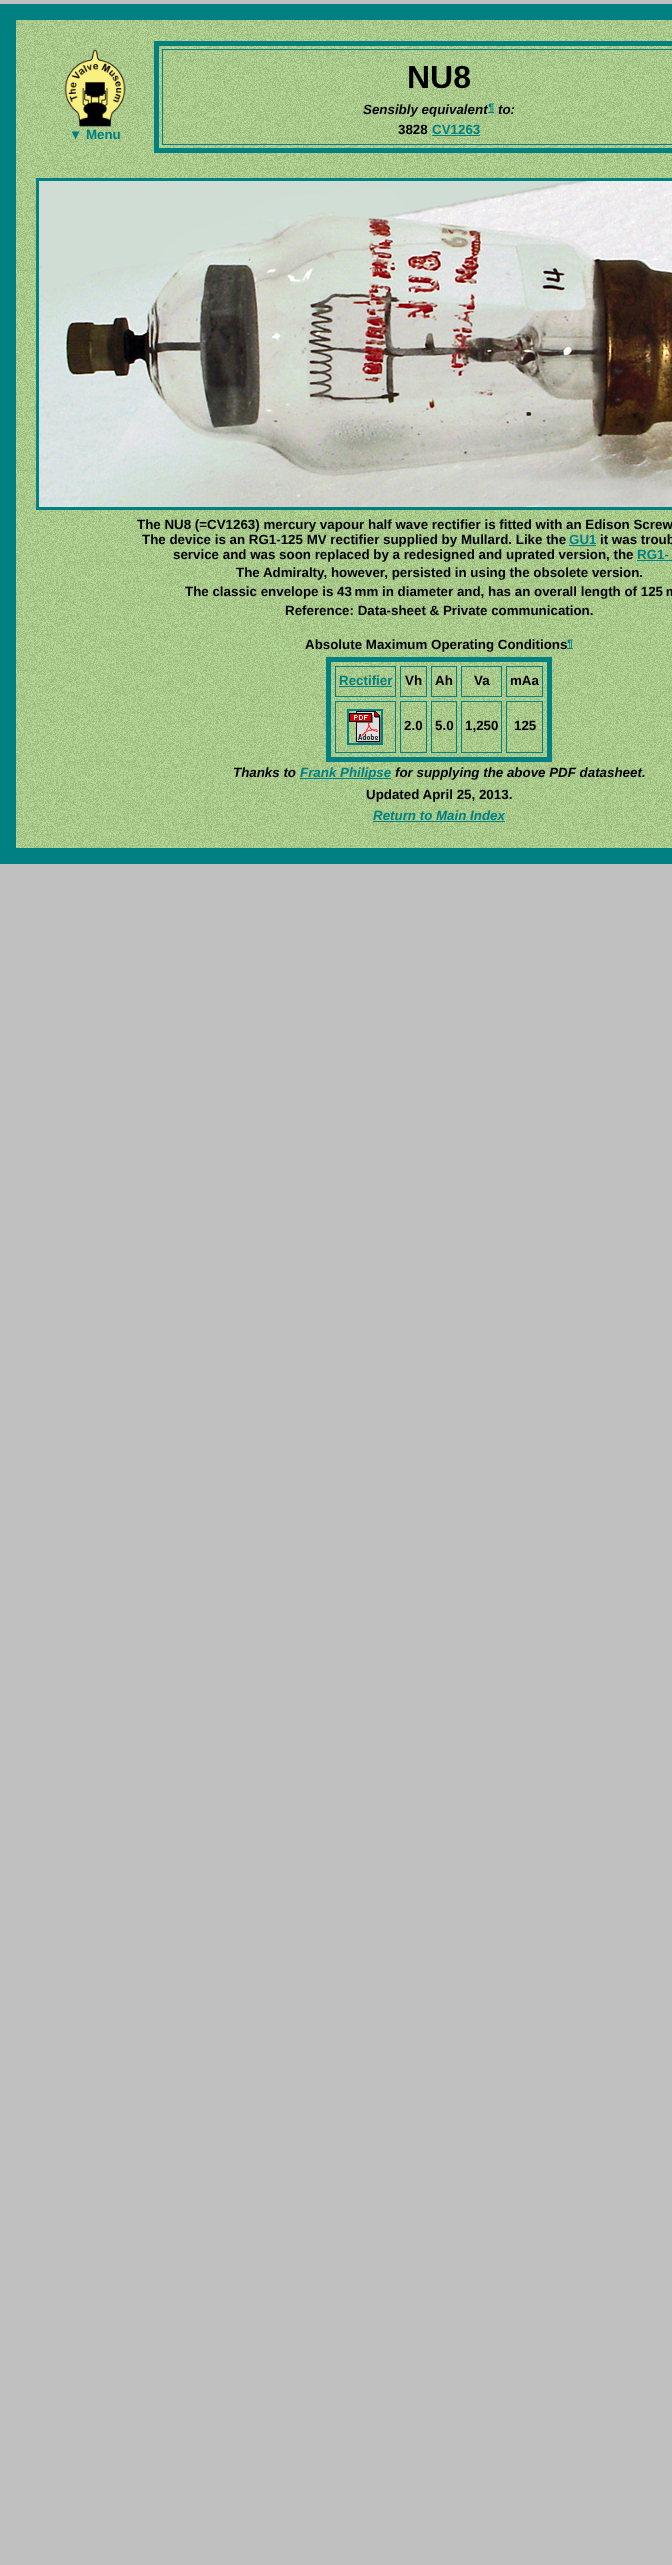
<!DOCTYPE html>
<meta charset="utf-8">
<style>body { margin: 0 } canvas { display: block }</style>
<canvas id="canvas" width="672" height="2565"></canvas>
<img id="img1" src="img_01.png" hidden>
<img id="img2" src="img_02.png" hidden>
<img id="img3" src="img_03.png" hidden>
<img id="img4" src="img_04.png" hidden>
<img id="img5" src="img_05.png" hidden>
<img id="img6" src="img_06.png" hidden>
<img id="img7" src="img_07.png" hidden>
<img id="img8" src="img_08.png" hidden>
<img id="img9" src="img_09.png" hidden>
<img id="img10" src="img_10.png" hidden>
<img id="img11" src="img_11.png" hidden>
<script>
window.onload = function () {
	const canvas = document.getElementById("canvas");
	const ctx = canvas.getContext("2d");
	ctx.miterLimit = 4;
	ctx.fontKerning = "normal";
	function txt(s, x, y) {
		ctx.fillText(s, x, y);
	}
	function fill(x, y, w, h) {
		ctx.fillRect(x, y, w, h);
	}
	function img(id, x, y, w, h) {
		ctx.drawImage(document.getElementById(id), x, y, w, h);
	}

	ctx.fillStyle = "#C0C0C0";
	fill(0, 0, 672, 2565);
	ctx.strokeStyle = "#008080";
	ctx.lineWidth = 15;
	ctx.strokeRect(7.5, 11.5, 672, 845);
	ctx.lineWidth = 1;
	ctx.strokeRect(15.5, 19.5, 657, 829);
	img("img1", 16, 20, 656, 828);
	img("img2", 36, 40, 636, 114);
	img("img3", 64, 49, 62, 78);
	img("img4", 159, 46, 513, 102);
	ctx.lineWidth = 5;
	ctx.strokeRect(156.5, 43.5, 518, 107);
	ctx.lineWidth = 1;
	ctx.strokeRect(162.5, 49.5, 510, 95);
	ctx.fillStyle = "#008080";
	fill(432, 135, 48, 1);
	img("img5", 36, 154, 636, 360);
	ctx.lineWidth = 3;
	ctx.strokeRect(37.5, 179.5, 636, 329);
	img("img6", 39, 181, 633, 326);
	img("img7", 133, 514, 539, 108);
	fill(569, 545, 27, 1);
	fill(637, 560, 35, 1);
	img("img8", 133, 622, 539, 140);
	fill(567, 648, 6, 1);
	img("img9", 331, 662, 216, 95);
	ctx.lineWidth = 5;
	ctx.strokeRect(328.5, 659.5, 221, 100);
	ctx.lineWidth = 1;
	ctx.strokeRect(335.5, 666.5, 60, 30);
	fill(339, 686, 53, 1);
	ctx.strokeRect(400.5, 666.5, 26, 30);
	ctx.strokeRect(431.5, 666.5, 25, 30);
	ctx.strokeRect(461.5, 666.5, 40, 30);
	ctx.strokeRect(506.5, 666.5, 36, 30);
	ctx.strokeRect(335.5, 701.5, 60, 51);
	ctx.lineWidth = 2;
	ctx.strokeRect(348, 710, 34, 34);
	img("img10", 349, 711, 32, 32);
	ctx.lineWidth = 1;
	ctx.strokeRect(400.5, 701.5, 26, 51);
	ctx.strokeRect(431.5, 701.5, 25, 51);
	ctx.strokeRect(461.5, 701.5, 40, 51);
	ctx.strokeRect(506.5, 701.5, 36, 51);
	img("img11", 133, 762, 539, 22);
	fill(300, 778, 91, 1);
	fill(373, 821, 132, 1);
	ctx.font = "bold 13.35px Liberation Sans";
	txt("▼ Menu", 69, 139);
	ctx.font = "bold 32px Liberation Sans";
	ctx.fillStyle = "#000000";
	txt("NU8", 407, 88);
	ctx.font = "italic bold 13.35px Liberation Sans";
	txt("Sensibly equivalent", 363, 114);
	ctx.fillStyle = "#008080";
	fill(488, 112, 6, 1);
	ctx.font = "italic bold 11px Liberation Sans";
	txt("¶", 488, 111);
	ctx.font = "italic bold 13.35px Liberation Sans";
	ctx.fillStyle = "#000000";
	txt("to:", 498, 114);
	ctx.font = "bold 13.35px Liberation Sans";
	txt("3828", 398, 134);
	ctx.fillStyle = "#008080";
	txt("CV1263", 432, 134);
	ctx.fillStyle = "#000000";
	txt("The NU8 (=CV1263) mercury vapour half wave rectifier is fitted with an Edison Screw", 137, 529);
	txt("The device is an RG1-125 MV rectifier supplied by Mullard. Like the", 142, 544);
	ctx.fillStyle = "#008080";
	txt("GU1", 569, 544);
	ctx.fillStyle = "#000000";
	txt("it was troub", 600, 544);
	txt("service and was soon replaced by a redesigned and uprated version, the", 173, 559);
	ctx.fillStyle = "#008080";
	txt("RG1-", 637, 559);
	ctx.fillStyle = "#000000";
	txt("The Admiralty, however, persisted in using the obsolete version.", 236, 577);
	txt("The classic envelope is 43 mm in diameter and, has an overall length of 125 m", 185, 596);
	txt("Reference: Data-sheet & Private communication.", 285, 615);
	txt("Absolute Maximum Operating Conditions", 305, 649);
	ctx.font = "bold 11px Liberation Sans";
	ctx.fillStyle = "#008080";
	txt("¶", 567, 647);
	ctx.font = "bold 13.35px Liberation Sans";
	txt("Rectifier", 339, 685);
	ctx.fillStyle = "#000000";
	txt("Vh", 405, 685);
	txt("Ah", 435, 685);
	txt("Va", 474, 685);
	txt("mAa", 510, 685);
	txt("2.0", 404, 730);
	txt("5.0", 435, 730);
	txt("1,250", 465, 730);
	txt("125", 514, 730);
	ctx.font = "italic bold 13.35px Liberation Sans";
	txt("Thanks to", 233, 777);
	ctx.fillStyle = "#008080";
	txt("Frank Philipse", 300, 777);
	ctx.fillStyle = "#000000";
	txt("for supplying the above PDF datasheet.", 395, 777);
	ctx.font = "bold 13.35px Liberation Sans";
	txt("Updated April 25, 2013.", 366, 799);
	ctx.font = "italic bold 13.35px Liberation Sans";
	ctx.fillStyle = "#008080";
	txt("Return to Main Index", 373, 820);
};
</script>
